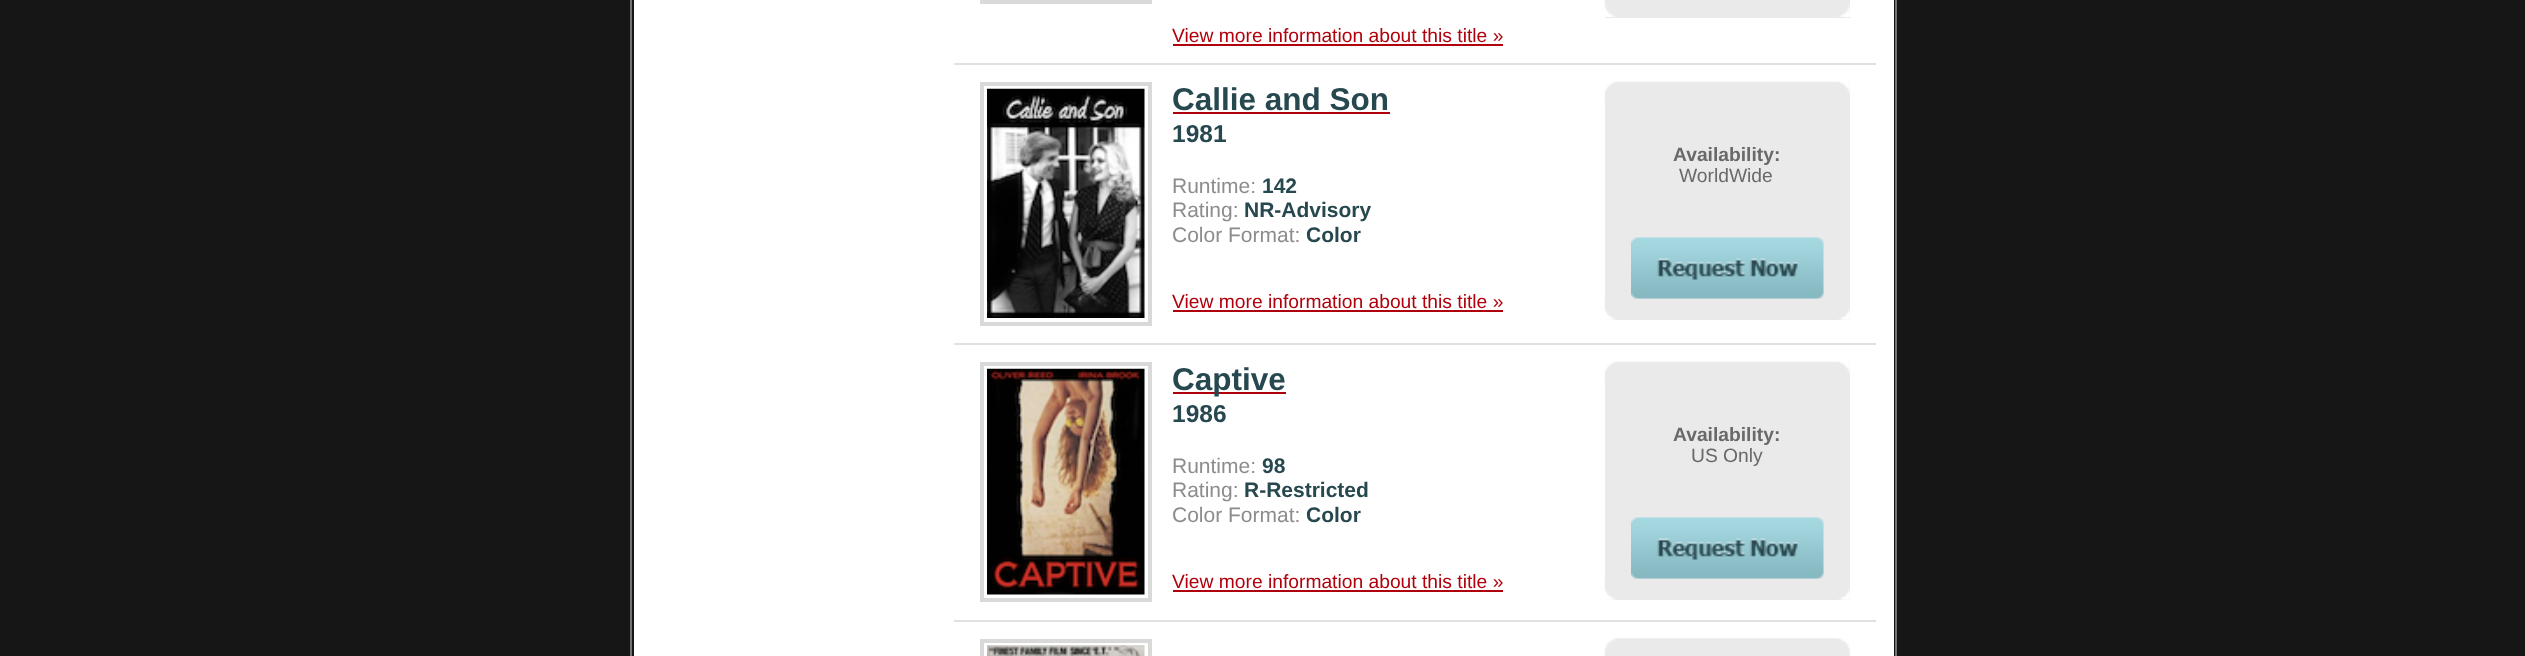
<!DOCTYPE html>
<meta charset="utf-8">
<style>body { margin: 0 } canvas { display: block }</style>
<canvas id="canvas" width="2525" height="656"></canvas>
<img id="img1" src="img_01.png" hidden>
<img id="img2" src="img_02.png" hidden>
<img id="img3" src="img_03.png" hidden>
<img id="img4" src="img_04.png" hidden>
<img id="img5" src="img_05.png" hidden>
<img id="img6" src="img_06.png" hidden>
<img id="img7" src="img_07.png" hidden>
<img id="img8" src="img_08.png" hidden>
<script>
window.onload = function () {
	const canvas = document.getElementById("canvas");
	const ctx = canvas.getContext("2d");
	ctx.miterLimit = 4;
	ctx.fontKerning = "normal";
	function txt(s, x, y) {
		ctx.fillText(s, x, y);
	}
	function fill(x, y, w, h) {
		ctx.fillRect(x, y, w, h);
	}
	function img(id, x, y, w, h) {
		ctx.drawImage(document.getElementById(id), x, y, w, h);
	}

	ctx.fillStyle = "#161616";
	fill(0, 0, 2525, 656);
	ctx.strokeStyle = "#737373";
	ctx.lineWidth = 2;
	ctx.strokeRect(631, -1, 1265, 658);
	ctx.fillStyle = "#FFFFFF";
	fill(634, 0, 1260, 656);
	ctx.fillStyle = "#E1E1E1";
	fill(954, 63, 922, 2);
	ctx.strokeStyle = "#D9D9D9";
	ctx.lineWidth = 4;
	ctx.strokeRect(982, -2, 168, 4);
	ctx.fillStyle = "#EAEAEA";
	fill(1605, 0, 245, 18);
	img("img1", 1604, 0, 246, 17);
	ctx.fillStyle = "#B0000B";
	fill(1173, 44, 330, 2);
	ctx.fillStyle = "#E1E1E1";
	fill(954, 343, 922, 2);
	ctx.strokeRect(982, 84, 168, 240);
	img("img2", 987, 88, 158, 230);
	ctx.fillStyle = "#B0000B";
	fill(1173, 112, 217, 2);
	fill(1173, 310, 330, 2);
	ctx.fillStyle = "#EAEAEA";
	fill(1605, 82, 245, 238);
	img("img3", 1604, 81, 246, 21);
	img("img4", 1631, 237, 193, 62);
	img("img5", 1604, 298, 246, 22);
	ctx.fillStyle = "#E1E1E1";
	fill(954, 620, 922, 2);
	ctx.strokeRect(982, 364, 168, 236);
	img("img6", 987, 368, 158, 227);
	ctx.fillStyle = "#B0000B";
	fill(1173, 392, 113, 2);
	fill(1173, 590, 330, 2);
	ctx.fillStyle = "#EAEAEA";
	fill(1605, 362, 245, 238);
	img("img3", 1604, 361, 246, 21);
	img("img4", 1631, 517, 193, 62);
	img("img5", 1604, 578, 246, 22);
	ctx.strokeRect(982, 641, 168, 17);
	img("img7", 987, 645, 158, 11);
	img("img8", 1604, 638, 246, 18);
	ctx.font = "19.25px Liberation Sans";
	ctx.fillStyle = "#B0000B";
	txt("View more information about this title »", 1172, 42);
	ctx.font = "bold 31.5px Liberation Sans";
	ctx.fillStyle = "#26484E";
	txt("Callie and Son", 1172, 110);
	ctx.font = "bold 24.5px Liberation Sans";
	txt("1981", 1172, 142);
	ctx.font = "21px Liberation Sans";
	ctx.fillStyle = "#8C8C8C";
	txt("Runtime:", 1172, 193);
	ctx.font = "bold 21px Liberation Sans";
	ctx.fillStyle = "#26484E";
	txt("142", 1262, 193);
	ctx.font = "21px Liberation Sans";
	ctx.fillStyle = "#8C8C8C";
	txt("Rating:", 1172, 217);
	ctx.font = "bold 21px Liberation Sans";
	ctx.fillStyle = "#26484E";
	txt("NR-Advisory", 1244, 217);
	ctx.font = "21px Liberation Sans";
	ctx.fillStyle = "#8C8C8C";
	txt("Color Format:", 1172, 242);
	ctx.font = "bold 21px Liberation Sans";
	ctx.fillStyle = "#26484E";
	txt("Color", 1306, 242);
	ctx.font = "19.25px Liberation Sans";
	ctx.fillStyle = "#B0000B";
	txt("View more information about this title »", 1172, 308);
	ctx.font = "bold 19.25px Liberation Sans";
	ctx.fillStyle = "#696969";
	txt("Availability:", 1673, 161);
	ctx.font = "19.25px Liberation Sans";
	txt("WorldWide", 1679, 182);
	ctx.font = "bold 31.5px Liberation Sans";
	ctx.fillStyle = "#26484E";
	txt("Captive", 1172, 390);
	ctx.font = "bold 24.5px Liberation Sans";
	txt("1986", 1172, 422);
	ctx.font = "21px Liberation Sans";
	ctx.fillStyle = "#8C8C8C";
	txt("Runtime:", 1172, 473);
	ctx.font = "bold 21px Liberation Sans";
	ctx.fillStyle = "#26484E";
	txt("98", 1262, 473);
	ctx.font = "21px Liberation Sans";
	ctx.fillStyle = "#8C8C8C";
	txt("Rating:", 1172, 497);
	ctx.font = "bold 21px Liberation Sans";
	ctx.fillStyle = "#26484E";
	txt("R-Restricted", 1244, 497);
	ctx.font = "21px Liberation Sans";
	ctx.fillStyle = "#8C8C8C";
	txt("Color Format:", 1172, 522);
	ctx.font = "bold 21px Liberation Sans";
	ctx.fillStyle = "#26484E";
	txt("Color", 1306, 522);
	ctx.font = "19.25px Liberation Sans";
	ctx.fillStyle = "#B0000B";
	txt("View more information about this title »", 1172, 588);
	ctx.font = "bold 19.25px Liberation Sans";
	ctx.fillStyle = "#696969";
	txt("Availability:", 1673, 441);
	ctx.font = "19.25px Liberation Sans";
	txt("US Only", 1691, 462);
};
</script>
